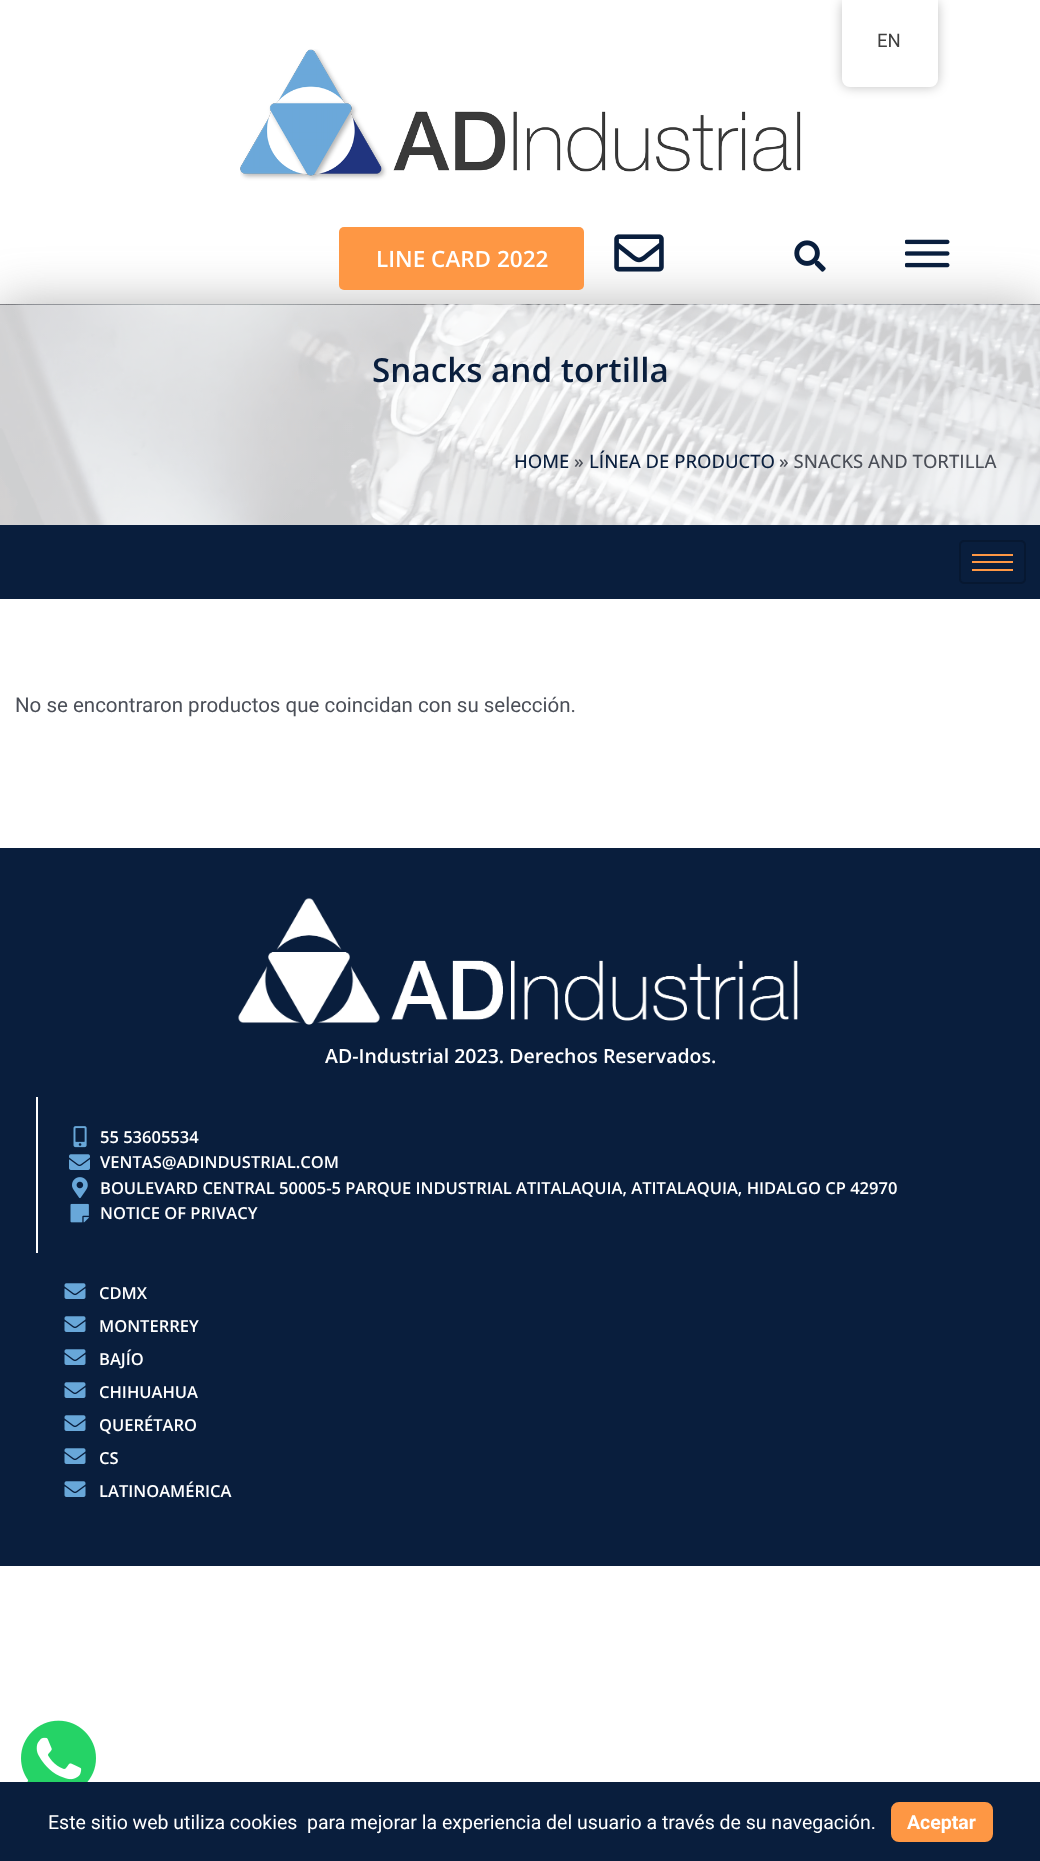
<!DOCTYPE html>
<meta charset="utf-8">
<style>body { margin: 0 } canvas { display: block }</style>
<canvas id="canvas" width="1040" height="1861"></canvas>
<img id="img1" src="img_01.png" hidden>
<img id="img2" src="img_02.png" hidden>
<img id="img3" src="img_03.png" hidden>
<img id="img4" src="img_04.png" hidden>
<img id="img5" src="img_05.png" hidden>
<img id="img6" src="img_06.png" hidden>
<img id="img7" src="img_07.png" hidden>
<img id="img8" src="img_08.png" hidden>
<img id="img9" src="img_09.png" hidden>
<img id="img10" src="img_10.png" hidden>
<img id="img11" src="img_11.png" hidden>
<img id="img12" src="img_12.png" hidden>
<script>
window.onload = function () {
	const canvas = document.getElementById("canvas");
	const ctx = canvas.getContext("2d");
	ctx.miterLimit = 4;
	ctx.fontKerning = "normal";
	function txt(s, x, y) {
		ctx.fillText(s, x, y);
	}
	function fill(x, y, w, h) {
		ctx.fillRect(x, y, w, h);
	}
	function round(x, y, w, h, r) {
		ctx.beginPath();
		ctx.roundRect(x, y, w, h, r);
		ctx.fill();
	}
	function img(id, x, y, w, h) {
		ctx.drawImage(document.getElementById(id), x, y, w, h);
	}

	ctx.fillStyle = "#FFFFFF";
	fill(0, 0, 1040, 1861);
	ctx.fillStyle = "rgba(0, 0, 0, 0.25)";
	ctx.filter = "blur(6px)";
	ctx.beginPath();
	ctx.roundRect(842, 0, 96, 87, 8);
	ctx.fill();
	ctx.filter = "none";
	ctx.fillStyle = "#FFFFFF";
	ctx.beginPath();
	ctx.roundRect(842, 0, 96, 87, [0, 0, 8, 8]);
	ctx.fill();
	img("img1", 240, 49, 561, 132);
	ctx.fillStyle = "rgba(107, 107, 107, 0.5)";
	ctx.filter = "blur(25.5px)";
	ctx.beginPath();
	ctx.rect(0, 305, 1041, 220);
	ctx.fill();
	ctx.filter = "none";
	ctx.fillStyle = "#FE9744";
	round(339, 227, 245, 63, 5);
	img("img2", 614, 234, 50, 38);
	img("img3", 794, 240, 32, 32);
	img("img4", 905, 239, 45, 29);
	img("img5", 0, 304, 1040, 221);
	ctx.fillStyle = "#091E3D";
	fill(0, 525, 1040, 74);
	ctx.beginPath();
	ctx.roundRect(960, 541, 65, 42, 4);
	ctx.strokeStyle = "#071831";
	ctx.lineWidth = 2;
	ctx.stroke();
	ctx.fillStyle = "#FE9744";
	fill(972, 554, 41, 2);
	fill(972, 561, 41, 2);
	fill(972, 569, 41, 2);
	ctx.fillStyle = "#091E3D";
	fill(0, 848, 1040, 718);
	img("img6", 238, 898, 560, 127);
	ctx.fillStyle = "#FFFFFF";
	fill(36, 1097, 2, 156);
	img("img7", 73, 1126, 14, 22);
	img("img8", 69, 1154, 21, 16);
	img("img9", 72, 1177, 16, 22);
	img("img10", 70, 1203, 19, 20);
	img("img11", 64, 1283, 22, 16);
	img("img11", 64, 1316, 22, 16);
	img("img11", 64, 1349, 22, 16);
	img("img11", 64, 1382, 22, 16);
	img("img11", 64, 1415, 22, 16);
	img("img11", 64, 1448, 22, 16);
	img("img11", 64, 1481, 22, 16);
	img("img12", 21, 1720, 75, 62);
	ctx.fillStyle = "#091E3D";
	fill(0, 1782, 1040, 79);
	ctx.fillStyle = "#FE9744";
	ctx.beginPath();
	ctx.roundRect(892, 1803, 100, 38, 7);
	ctx.fill();
	ctx.strokeStyle = "#FE9744";
	ctx.stroke();
	ctx.font = "18.5px Roboto";
	ctx.fillStyle = "#404040";
	txt("EN", 877, 47);
	ctx.font = "600 22.5px Open Sans";
	ctx.fillStyle = "#FFFFFF";
	txt("LINE CARD 2022", 376, 267);
	ctx.font = "600 33.25px Open Sans";
	ctx.fillStyle = "#091E3D";
	txt("Snacks and tortilla", 372, 382);
	ctx.font = "500 18.5px Open Sans";
	txt("HOME", 514, 468);
	ctx.fillStyle = "#4B4F58";
	txt("»", 574, 468);
	ctx.fillStyle = "#091E3D";
	txt("LÍNEA DE PRODUCTO", 589, 468);
	ctx.fillStyle = "#4B4F58";
	txt("» SNACKS AND TORTILLA", 779, 468);
	ctx.font = "20.5px Roboto";
	txt("No se encontraron productos que coincidan con su selección.", 15, 712);
	ctx.font = "600 19.5px Open Sans";
	ctx.fillStyle = "#FFFFFF";
	txt("AD-Industrial 2023. Derechos Reservados.", 325, 1063);
	ctx.font = "600 16.5px Open Sans";
	txt("55 53605534", 100, 1143);
	txt("VENTAS@ADINDUSTRIAL.COM", 100, 1168);
	txt("BOULEVARD CENTRAL 50005-5 PARQUE INDUSTRIAL ATITALAQUIA, ATITALAQUIA, HIDALGO CP 42970", 100, 1194);
	txt("NOTICE OF PRIVACY", 100, 1219);
	txt("CDMX", 99, 1299);
	txt("MONTERREY", 99, 1332);
	txt("BAJÍO", 99, 1365);
	txt("CHIHUAHUA", 99, 1398);
	txt("QUERÉTARO", 99, 1431);
	txt("CS", 99, 1464);
	txt("LATINOAMÉRICA", 99, 1497);
	ctx.font = "19.5px Roboto";
	txt("Este sitio web utiliza cookies  para mejorar la experiencia del usuario a través de su navegación.", 48, 1829);
	ctx.font = "bold 19.5px Roboto";
	txt("Aceptar", 907, 1829);
};
</script>
